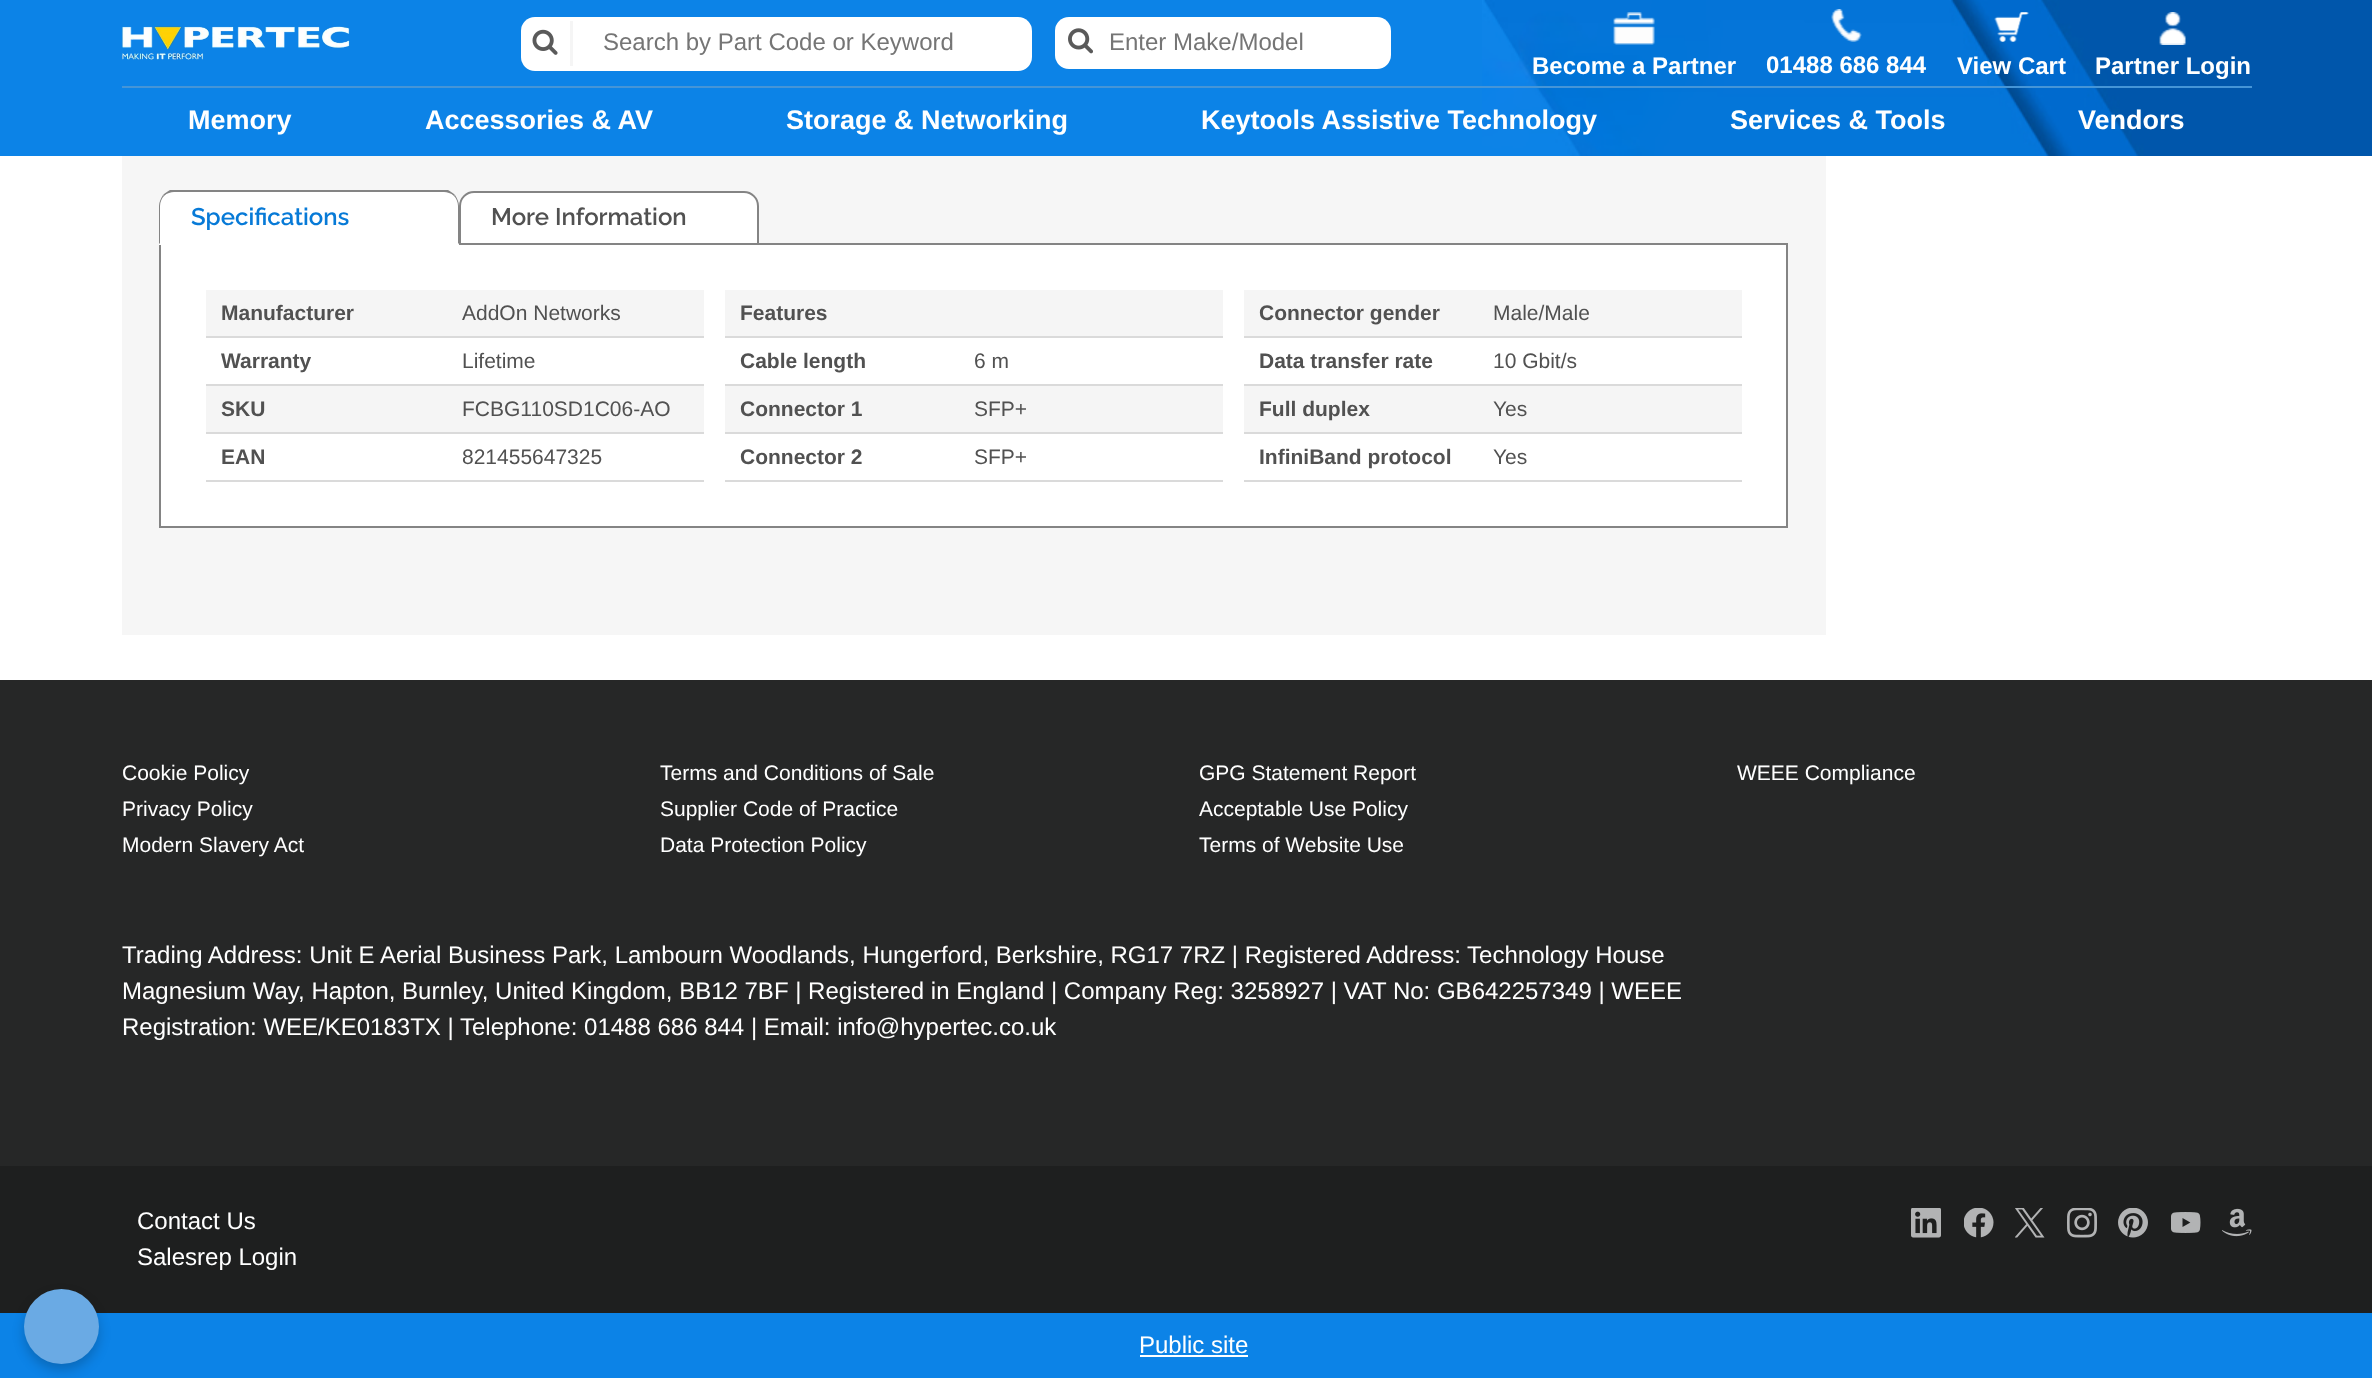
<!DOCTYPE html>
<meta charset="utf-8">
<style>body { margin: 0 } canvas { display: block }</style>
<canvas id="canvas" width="2372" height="1378"></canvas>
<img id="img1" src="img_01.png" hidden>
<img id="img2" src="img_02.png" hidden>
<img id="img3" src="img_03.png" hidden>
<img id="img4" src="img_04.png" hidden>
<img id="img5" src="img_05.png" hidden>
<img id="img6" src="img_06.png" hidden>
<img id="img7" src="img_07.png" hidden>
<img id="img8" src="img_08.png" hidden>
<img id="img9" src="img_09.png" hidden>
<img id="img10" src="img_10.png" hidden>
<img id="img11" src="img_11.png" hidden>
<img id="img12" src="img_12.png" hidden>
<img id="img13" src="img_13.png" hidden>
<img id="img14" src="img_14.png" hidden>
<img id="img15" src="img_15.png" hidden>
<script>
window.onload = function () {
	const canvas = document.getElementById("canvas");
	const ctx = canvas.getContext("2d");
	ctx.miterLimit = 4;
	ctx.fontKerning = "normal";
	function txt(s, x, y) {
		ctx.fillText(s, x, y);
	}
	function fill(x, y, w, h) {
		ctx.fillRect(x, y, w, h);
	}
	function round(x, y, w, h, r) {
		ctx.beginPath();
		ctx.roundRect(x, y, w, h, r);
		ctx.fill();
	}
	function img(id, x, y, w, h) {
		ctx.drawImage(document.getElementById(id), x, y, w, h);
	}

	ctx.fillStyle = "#FFFFFF";
	fill(0, 0, 2372, 1378);
	ctx.fillStyle = "#0C83E7";
	fill(0, 0, 1482, 156);
	img("img1", 1482, 0, 890, 156);
	ctx.fillStyle = "#4595D7";
	fill(122, 86, 2130, 2);
	img("img2", 122, 26, 228, 34);
	ctx.fillStyle = "#FFFFFF";
	round(521, 17, 511, 54, 14);
	ctx.fillStyle = "#F5F5F5";
	fill(570, 21, 3, 45);
	img("img3", 532, 29, 26, 26);
	ctx.fillStyle = "#FFFFFF";
	round(1055, 17, 336, 52, 14);
	img("img4", 1068, 28, 25, 26);
	img("img5", 1613, 12, 42, 33);
	img("img6", 1831, 9, 31, 33);
	img("img7", 1994, 12, 35, 30);
	img("img8", 2159, 12, 27, 33);
	ctx.fillStyle = "#F6F6F6";
	fill(122, 156, 1704, 479);
	ctx.fillStyle = "#FFFFFF";
	ctx.beginPath();
	ctx.rect(160, 244, 1627, 283);
	ctx.fill();
	ctx.strokeStyle = "#848484";
	ctx.lineWidth = 2;
	ctx.stroke();
	ctx.beginPath();
	ctx.roundRect(159, 191, 300, 54, [15, 15, 0, 0]);
	ctx.fill();
	ctx.fillStyle = "#848484";
	ctx.beginPath();
	ctx.moveTo(174, 192);
	ctx.bezierCurveTo(171, 192, 167, 193, 164, 196);
	ctx.lineTo(163, 195);
	ctx.bezierCurveTo(165, 193, 168, 191, 170, 190);
	ctx.lineTo(448, 190);
	ctx.bezierCurveTo(450, 191, 453, 193, 455, 195);
	ctx.lineTo(454, 196);
	ctx.bezierCurveTo(451, 193, 447, 192, 444, 192);
	ctx.closePath();
	ctx.fill();
	ctx.beginPath();
	ctx.moveTo(459, 244);
	ctx.lineTo(459, 206);
	ctx.bezierCurveTo(459, 202, 457, 198, 455, 195);
	ctx.lineTo(454, 196);
	ctx.bezierCurveTo(456, 198, 458, 202, 458, 206);
	ctx.lineTo(458, 243);
	ctx.closePath();
	ctx.fill();
	ctx.beginPath();
	ctx.moveTo(159, 206);
	ctx.lineTo(159, 244);
	ctx.lineTo(160, 243);
	ctx.lineTo(160, 206);
	ctx.bezierCurveTo(160, 202, 162, 198, 164, 196);
	ctx.lineTo(163, 195);
	ctx.bezierCurveTo(161, 198, 159, 202, 159, 206);
	ctx.closePath();
	ctx.fill();
	ctx.fillStyle = "#FFFFFF";
	ctx.beginPath();
	ctx.roundRect(460, 192, 298, 52, [14, 14, 0, 0]);
	ctx.fill();
	ctx.stroke();
	ctx.fillStyle = "#F5F5F5";
	fill(206, 290, 498, 46);
	ctx.fillStyle = "#DADADA";
	fill(206, 336, 498, 2);
	ctx.fillStyle = "#F5F5F5";
	fill(725, 290, 498, 46);
	ctx.fillStyle = "#DADADA";
	fill(725, 336, 498, 2);
	ctx.fillStyle = "#F5F5F5";
	fill(1244, 290, 498, 46);
	ctx.fillStyle = "#DADADA";
	fill(1244, 336, 498, 2);
	fill(725, 384, 498, 2);
	fill(1244, 384, 498, 2);
	ctx.fillStyle = "#F5F5F5";
	fill(725, 386, 498, 46);
	ctx.fillStyle = "#DADADA";
	fill(725, 432, 498, 2);
	ctx.fillStyle = "#F5F5F5";
	fill(1244, 386, 498, 46);
	ctx.fillStyle = "#DADADA";
	fill(1244, 432, 498, 2);
	fill(725, 480, 498, 2);
	fill(1244, 480, 498, 2);
	fill(206, 384, 498, 2);
	ctx.fillStyle = "#F5F5F5";
	fill(206, 386, 498, 46);
	ctx.fillStyle = "#DADADA";
	fill(206, 432, 498, 2);
	fill(206, 480, 498, 2);
	ctx.fillStyle = "#1E1F1F";
	fill(0, 1166, 2372, 147);
	ctx.fillStyle = "#0C83E7";
	fill(0, 1313, 2372, 65);
	ctx.fillStyle = "rgba(0, 0, 0, 0.2)";
	ctx.filter = "blur(6px)";
	ctx.beginPath();
	ctx.roundRect(24, 1295, 75, 75, 37.5);
	ctx.fill();
	ctx.filter = "none";
	ctx.fillStyle = "#6AAAE4";
	ctx.beginPath();
	ctx.arc(61.5, 1326.5, 37.5, 0, Math.PI * 2);
	ctx.fill();
	ctx.fillStyle = "#262727";
	fill(0, 680, 2372, 486);
	img("img9", 1911, 1208, 30, 30);
	img("img10", 1964, 1208, 30, 30);
	img("img11", 2015, 1208, 30, 30);
	img("img12", 2067, 1208, 30, 30);
	img("img13", 2118, 1208, 30, 30);
	img("img14", 2171, 1212, 30, 21);
	img("img15", 2222, 1208, 30, 29);
	ctx.fillStyle = "#FFFFFF";
	fill(1140, 1355, 108, 2);
	ctx.font = "24px Liberation Sans";
	ctx.fillStyle = "#757575";
	txt("Search by Part Code or Keyword", 603, 50);
	txt("Enter Make/Model", 1109, 50);
	ctx.font = "bold 24px Liberation Sans";
	ctx.fillStyle = "#FFFFFF";
	txt("Become a Partner", 1532, 74);
	txt("01488 686 844", 1766, 73);
	txt("View Cart", 1957, 74);
	txt("Partner Login", 2095, 74);
	ctx.font = "bold 27px Liberation Sans";
	txt("Memory", 188, 129);
	txt("Accessories & AV", 425, 129);
	txt("Storage & Networking", 786, 129);
	txt("Keytools Assistive Technology", 1201, 129);
	txt("Services & Tools", 1730, 129);
	txt("Vendors", 2078, 129);
	ctx.font = "600 24px Raleway";
	ctx.fillStyle = "#077AD7";
	txt("Specifications", 191, 225);
	ctx.fillStyle = "#515151";
	txt("More Information", 491, 225);
	ctx.font = "bold 21px Liberation Sans";
	txt("Manufacturer", 221, 320);
	ctx.font = "21px Liberation Sans";
	txt("AddOn Networks", 462, 320);
	ctx.font = "bold 21px Liberation Sans";
	txt("Features", 740, 320);
	txt("Connector gender", 1259, 320);
	ctx.font = "21px Liberation Sans";
	txt("Male/Male", 1493, 320);
	ctx.font = "bold 21px Liberation Sans";
	txt("Cable length", 740, 368);
	ctx.font = "21px Liberation Sans";
	txt("6 m", 974, 368);
	ctx.font = "bold 21px Liberation Sans";
	txt("Data transfer rate", 1259, 368);
	ctx.font = "21px Liberation Sans";
	txt("10 Gbit/s", 1493, 368);
	ctx.font = "bold 21px Liberation Sans";
	txt("Connector 1", 740, 416);
	ctx.font = "21px Liberation Sans";
	txt("SFP+", 974, 416);
	ctx.font = "bold 21px Liberation Sans";
	txt("Full duplex", 1259, 416);
	ctx.font = "21px Liberation Sans";
	txt("Yes", 1493, 416);
	ctx.font = "bold 21px Liberation Sans";
	txt("Connector 2", 740, 464);
	ctx.font = "21px Liberation Sans";
	txt("SFP+", 974, 464);
	ctx.font = "bold 21px Liberation Sans";
	txt("InfiniBand protocol", 1259, 464);
	ctx.font = "21px Liberation Sans";
	txt("Yes", 1493, 464);
	ctx.font = "bold 21px Liberation Sans";
	txt("Warranty", 221, 368);
	ctx.font = "21px Liberation Sans";
	txt("Lifetime", 462, 368);
	ctx.font = "bold 21px Liberation Sans";
	txt("SKU", 221, 416);
	ctx.font = "21px Liberation Sans";
	txt("FCBG110SD1C06-AO", 462, 416);
	ctx.font = "bold 21px Liberation Sans";
	txt("EAN", 221, 464);
	ctx.font = "21px Liberation Sans";
	txt("821455647325", 462, 464);
	ctx.fillStyle = "#FFFFFF";
	txt("Cookie Policy", 122, 780);
	txt("Terms and Conditions of Sale", 660, 780);
	txt("GPG Statement Report", 1199, 780);
	txt("WEEE Compliance", 1737, 780);
	txt("Privacy Policy", 122, 816);
	txt("Supplier Code of Practice", 660, 816);
	txt("Acceptable Use Policy", 1199, 816);
	txt("Modern Slavery Act", 122, 852);
	txt("Data Protection Policy", 660, 852);
	txt("Terms of Website Use", 1199, 852);
	ctx.font = "24px Liberation Sans";
	txt("Trading Address: Unit E Aerial Business Park, Lambourn Woodlands, Hungerford, Berkshire, RG17 7RZ | Registered Address: Technology House", 122, 963);
	txt("Magnesium Way, Hapton, Burnley, United Kingdom, BB12 7BF | Registered in England | Company Reg: 3258927 | VAT No: GB642257349 | WEEE", 122, 999);
	txt("Registration: WEE/KE0183TX | Telephone: 01488 686 844 | Email: info@hypertec.co.uk", 122, 1035);
	txt("Contact Us", 137, 1229);
	txt("Salesrep Login", 137, 1265);
	txt("Public site", 1139, 1353);
};
</script>
